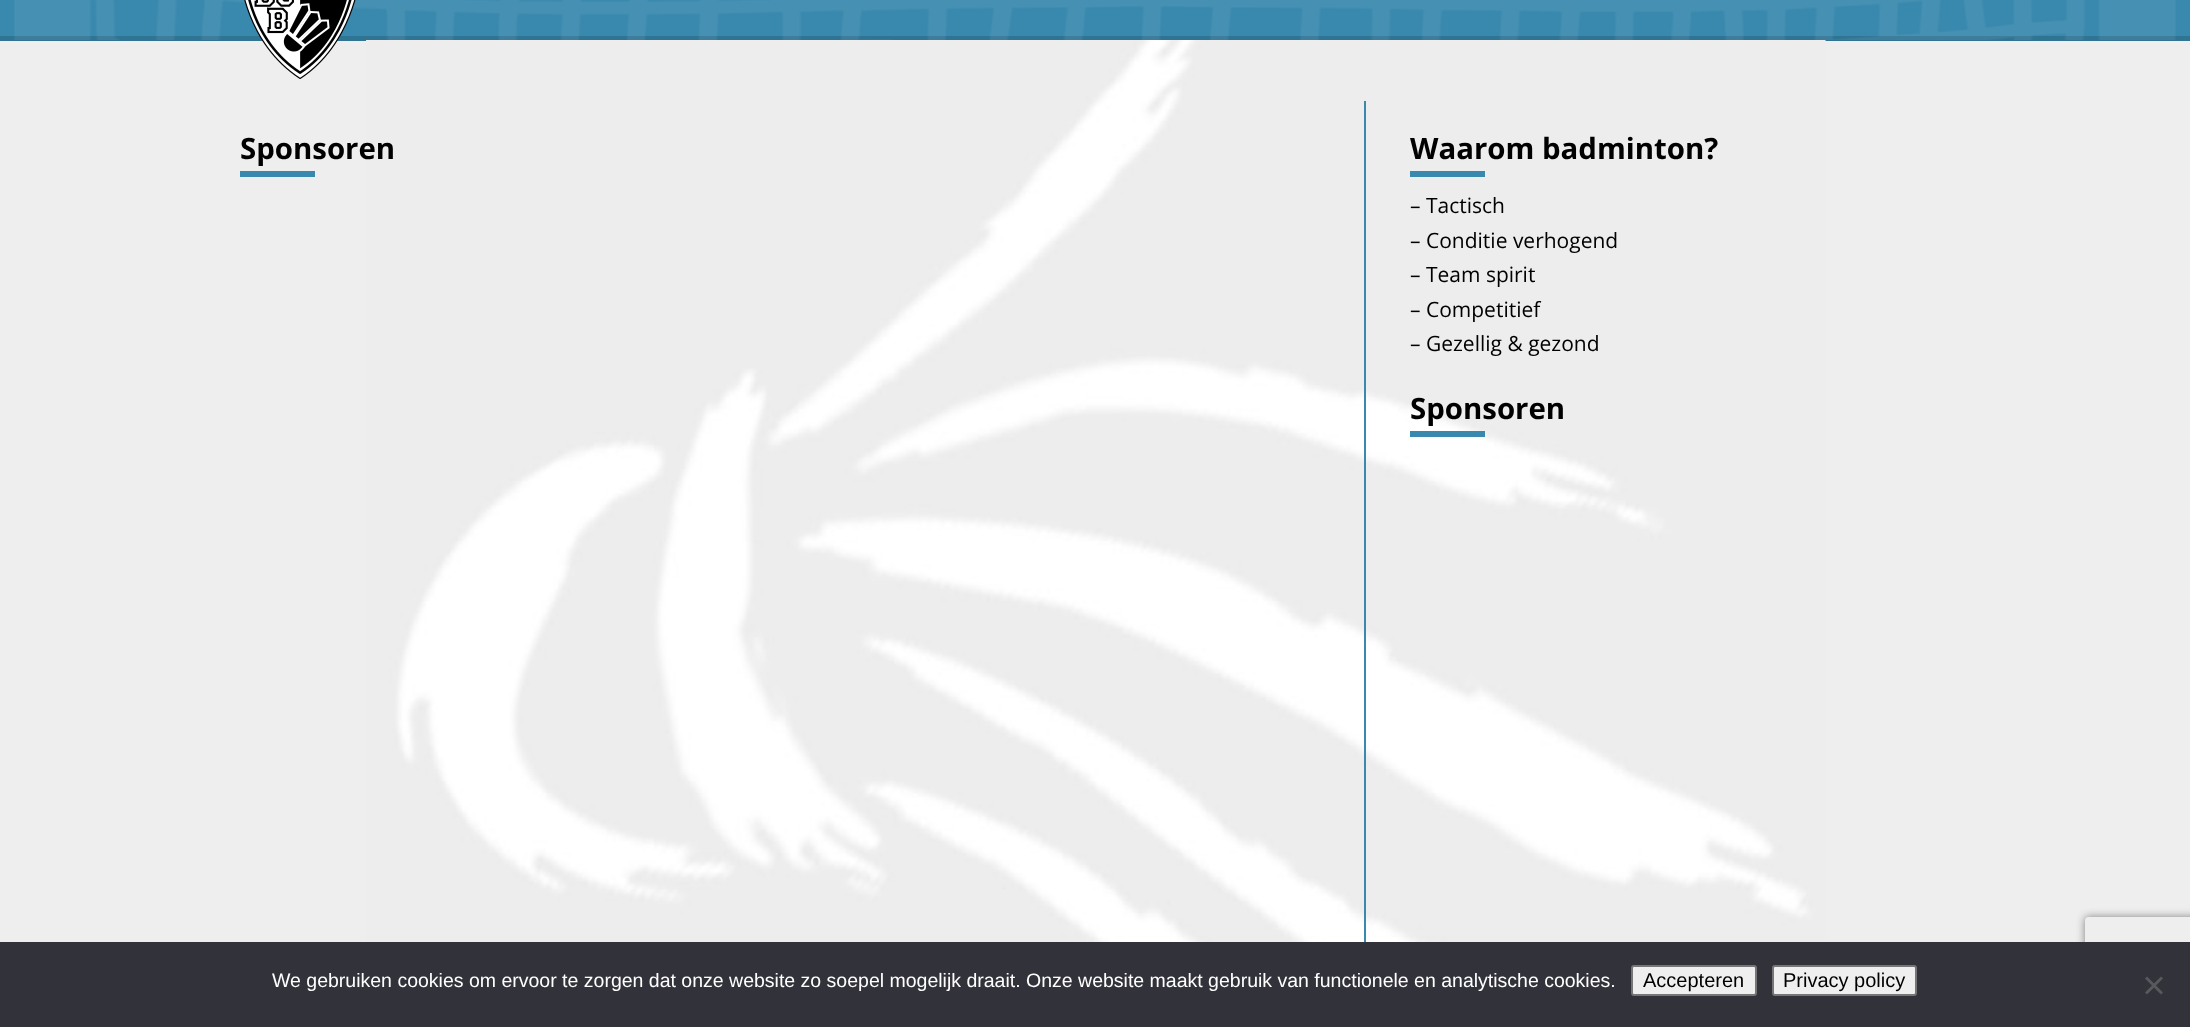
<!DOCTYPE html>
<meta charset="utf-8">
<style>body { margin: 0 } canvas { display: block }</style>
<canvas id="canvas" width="2190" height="1027"></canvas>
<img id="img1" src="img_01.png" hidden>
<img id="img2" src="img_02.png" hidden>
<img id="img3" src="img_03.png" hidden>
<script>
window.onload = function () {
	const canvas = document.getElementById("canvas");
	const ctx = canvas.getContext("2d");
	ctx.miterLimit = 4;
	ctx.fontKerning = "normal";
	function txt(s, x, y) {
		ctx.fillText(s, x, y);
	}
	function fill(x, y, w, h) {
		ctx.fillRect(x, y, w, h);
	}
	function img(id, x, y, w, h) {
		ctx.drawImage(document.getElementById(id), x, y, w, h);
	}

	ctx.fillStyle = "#3989AE";
	fill(0, 0, 2190, 1027);
	ctx.fillStyle = "#307494";
	fill(0, 36, 2190, 5);
	img("img1", 14, 0, 2162, 40);
	ctx.fillStyle = "#EEEEEE";
	fill(0, 41, 2190, 901);
	img("img2", 244, 0, 112, 79);
	img("img3", 366, 40, 1460, 902);
	ctx.fillStyle = "#3989AE";
	fill(1364, 101, 2, 841);
	fill(240, 171, 75, 6);
	fill(1410, 171, 75, 6);
	fill(1410, 431, 75, 6);
	ctx.save();
	ctx.beginPath();
	ctx.moveTo(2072, 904);
	ctx.lineTo(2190, 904);
	ctx.lineTo(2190, 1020);
	ctx.lineTo(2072, 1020);
	ctx.closePath();
	ctx.moveTo(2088, 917);
	ctx.lineTo(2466, 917);
	ctx.bezierCurveTo(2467.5, 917, 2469, 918.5, 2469, 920);
	ctx.lineTo(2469, 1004);
	ctx.bezierCurveTo(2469, 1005.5, 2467.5, 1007, 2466, 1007);
	ctx.lineTo(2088, 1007);
	ctx.bezierCurveTo(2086.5, 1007, 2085, 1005.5, 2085, 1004);
	ctx.lineTo(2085, 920);
	ctx.bezierCurveTo(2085, 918.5, 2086.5, 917, 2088, 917);
	ctx.closePath();
	ctx.clip("evenodd");
	ctx.fillStyle = "#808080";
	ctx.filter = "blur(4px)";
	ctx.beginPath();
	ctx.roundRect(2085, 917, 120, 90, 3);
	ctx.fill();
	ctx.filter = "none";
	ctx.restore();
	ctx.fillStyle = "#32323A";
	fill(0, 942, 2190, 85);
	ctx.fillStyle = "#EFEFEF";
	ctx.beginPath();
	ctx.roundRect(1632, 966, 124, 29, 2);
	ctx.fill();
	ctx.strokeStyle = "#767676";
	ctx.lineWidth = 2;
	ctx.stroke();
	ctx.beginPath();
	ctx.roundRect(1773, 966, 143, 29, 2);
	ctx.fill();
	ctx.stroke();
	ctx.fillStyle = "#59595D";
	ctx.beginPath();
	ctx.moveTo(2161, 976.5);
	ctx.lineTo(2163, 978.5);
	ctx.lineTo(2147, 994.5);
	ctx.lineTo(2145, 992.5);
	ctx.closePath();
	ctx.fill();
	ctx.beginPath();
	ctx.moveTo(2145, 978.5);
	ctx.lineTo(2147, 976.5);
	ctx.lineTo(2163, 992.5);
	ctx.lineTo(2161, 994.5);
	ctx.closePath();
	ctx.fill();
	ctx.font = "bold 29.4px Open Sans";
	ctx.fillStyle = "#000000";
	txt("Sponsoren", 240, 159);
	txt("Waarom badminton?", 1410, 159);
	ctx.font = "21px Open Sans";
	txt("– Tactisch", 1410, 213);
	txt("– Conditie verhogend", 1410, 248);
	txt("– Team spirit", 1410, 282);
	txt("– Competitief", 1410, 317);
	txt("– Gezellig & gezond", 1410, 351);
	ctx.font = "bold 29.4px Open Sans";
	txt("Sponsoren", 1410, 419);
	ctx.font = "19.5px Liberation Sans";
	ctx.fillStyle = "#FFFFFF";
	txt("We gebruiken cookies om ervoor te zorgen dat onze website zo soepel mogelijk draait. Onze website maakt gebruik van functionele en analytische cookies.", 272, 987);
	ctx.font = "20px Liberation Sans";
	ctx.fillStyle = "#000000";
	txt("Accepteren", 1643, 987);
	txt("Privacy policy", 1783, 987);
};
</script>
